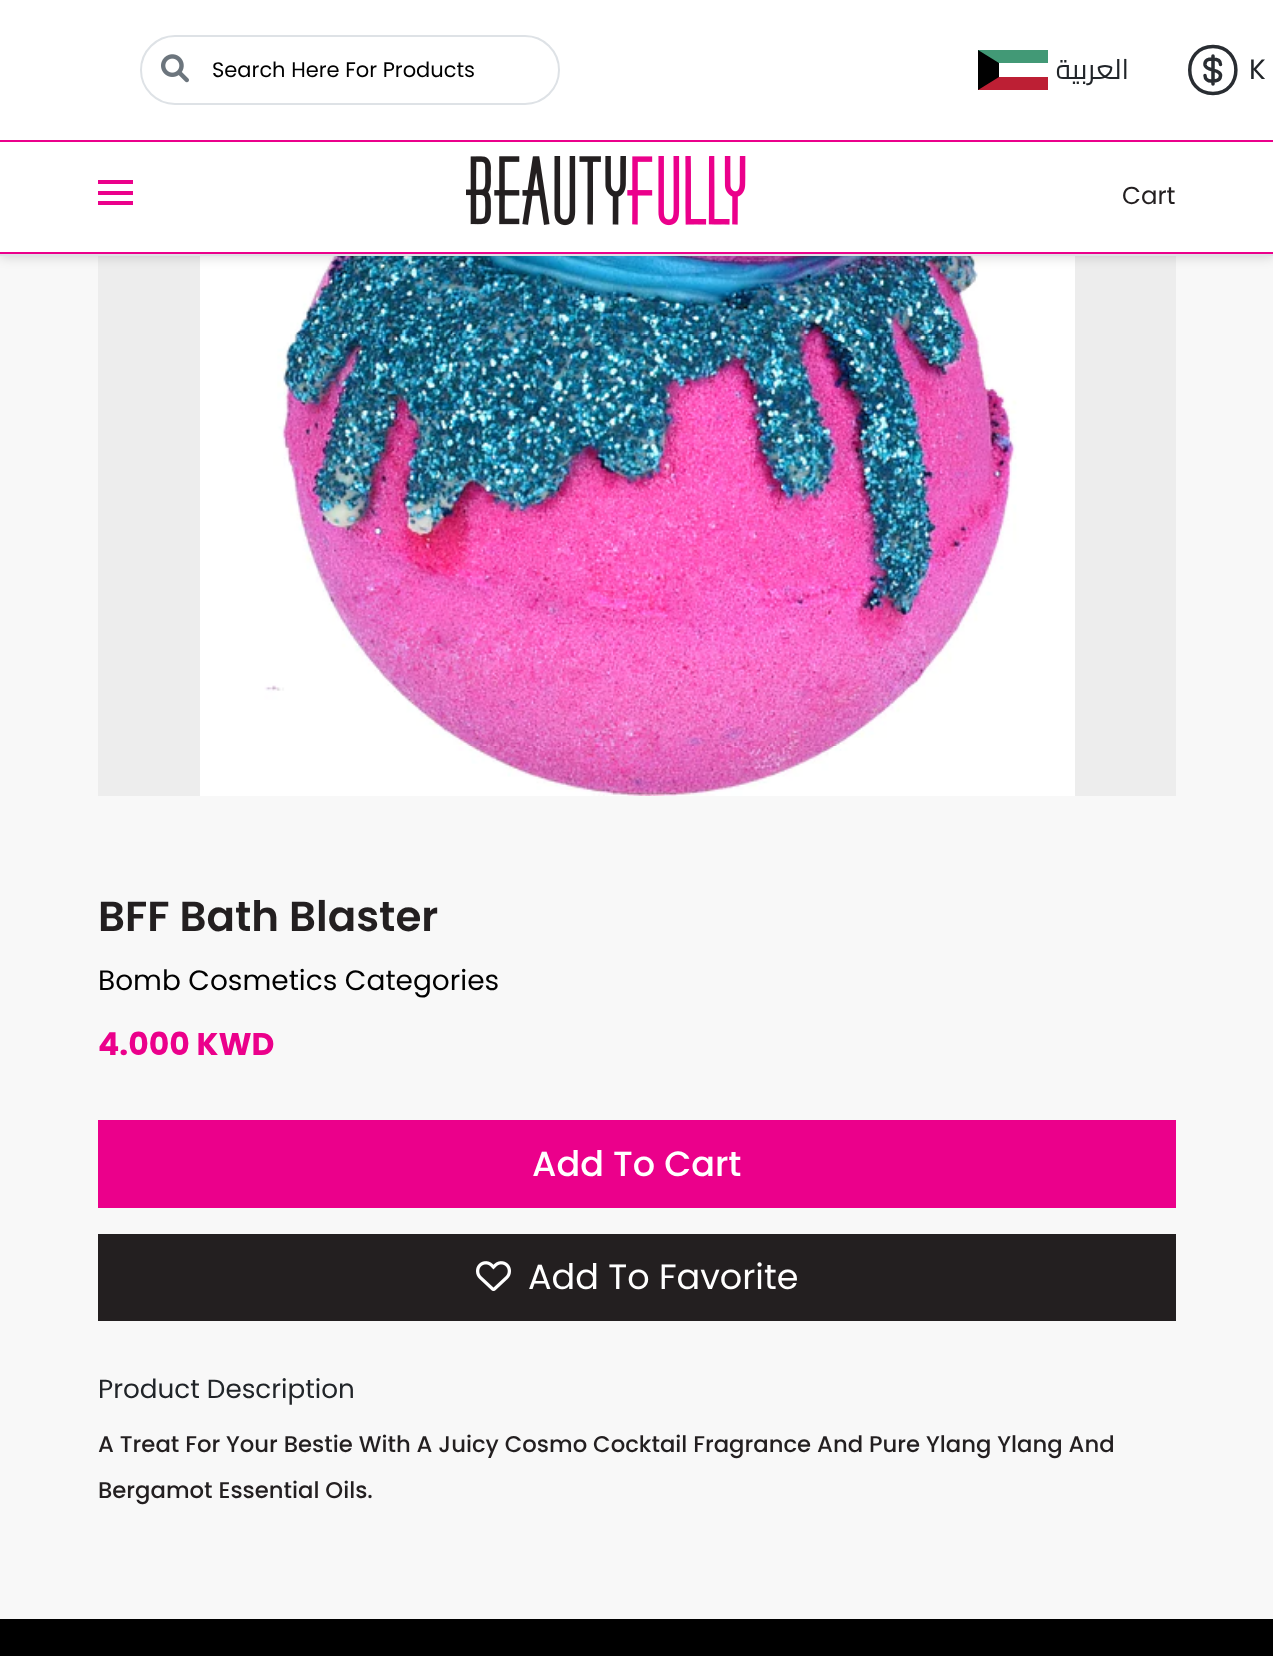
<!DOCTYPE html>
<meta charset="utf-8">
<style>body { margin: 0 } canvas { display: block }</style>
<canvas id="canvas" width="1273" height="1656"></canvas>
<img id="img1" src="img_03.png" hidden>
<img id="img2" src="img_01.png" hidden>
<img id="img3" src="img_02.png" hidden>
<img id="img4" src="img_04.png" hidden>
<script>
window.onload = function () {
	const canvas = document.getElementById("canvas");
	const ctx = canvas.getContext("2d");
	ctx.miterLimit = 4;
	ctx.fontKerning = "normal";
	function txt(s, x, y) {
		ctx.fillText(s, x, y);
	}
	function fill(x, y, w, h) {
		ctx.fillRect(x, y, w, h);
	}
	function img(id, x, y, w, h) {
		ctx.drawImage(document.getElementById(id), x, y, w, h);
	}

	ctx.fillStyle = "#F8F8F8";
	fill(0, 0, 1273, 1656);
	ctx.fillStyle = "#EDEDED";
	fill(98, 256, 1078, 540);
	img("img1", 200, 256, 875, 540);
	ctx.fillStyle = "rgba(0, 0, 0, 0.16)";
	ctx.filter = "blur(6px)";
	ctx.beginPath();
	ctx.rect(0, 2, 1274, 255);
	ctx.fill();
	ctx.filter = "none";
	ctx.fillStyle = "#FFFFFF";
	fill(0, 0, 1273, 252);
	ctx.fillStyle = "#DEE2E6";
	fill(0, 254, 1273, 2);
	ctx.fillStyle = "#EB008B";
	fill(0, 140, 1273, 2);
	ctx.beginPath();
	ctx.roundRect(141, 36, 418, 68, 34);
	ctx.strokeStyle = "#DEE2E6";
	ctx.lineWidth = 2;
	ctx.stroke();
	img("img2", 161, 54, 28, 29);
	ctx.fillStyle = "#429976";
	fill(978, 50, 70, 13);
	ctx.fillStyle = "#BD1F34";
	fill(978, 77, 70, 13);
	ctx.fillStyle = "#010101";
	ctx.beginPath();
	ctx.moveTo(978, 50);
	ctx.lineTo(978, 90);
	ctx.lineTo(999, 77);
	ctx.lineTo(999, 63);
	ctx.closePath();
	ctx.fill();
	ctx.beginPath();
	ctx.moveTo(1205, 75.5);
	ctx.bezierCurveTo(1205, 79, 1208, 81, 1211, 81);
	ctx.bezierCurveTo(1214.5, 81, 1218.5, 81.5, 1220, 78);
	ctx.bezierCurveTo(1224, 68.5, 1206, 72, 1205, 65);
	ctx.bezierCurveTo(1204.5, 59.5, 1208.5, 59, 1212.5, 59);
	ctx.bezierCurveTo(1216.5, 59, 1220.5, 59.5, 1220.5, 64.5);
	ctx.moveTo(1213, 56);
	ctx.lineTo(1213, 84);
	ctx.moveTo(1213, 93.5);
	ctx.bezierCurveTo(1243.5, 93.5, 1243.5, 46.5, 1213, 46.5);
	ctx.bezierCurveTo(1182, 46.5, 1182, 93.5, 1213, 93.5);
	ctx.closePath();
	ctx.strokeStyle = "#292D32";
	ctx.lineWidth = 3.5;
	ctx.lineCap = "round";
	ctx.lineJoin = "round";
	ctx.stroke();
	ctx.fillStyle = "#EB008B";
	fill(0, 252, 1273, 2);
	fill(98, 180, 35, 4);
	fill(98, 191, 35, 4);
	fill(98, 201, 35, 4);
	img("img3", 466, 156, 280, 70);
	fill(98, 1120, 1078, 88);
	ctx.fillStyle = "#231F20";
	fill(98, 1234, 1078, 87);
	img("img4", 476, 1261, 35, 30);
	ctx.fillStyle = "#000000";
	fill(0, 1619, 1273, 37);
	ctx.font = "21px Poppins";
	txt("Search Here For Products", 212, 77);
	ctx.direction = "rtl";
	ctx.font = "28px Cairo";
	ctx.fillStyle = "#212529";
	txt("العربية", 1129, 79);
	ctx.direction = "ltr";
	ctx.font = "28px Poppins";
	txt("K", 1249, 79);
	ctx.font = "24.5px Poppins";
	ctx.fillStyle = "#231F20";
	txt("Cart", 1122, 204);
	ctx.font = "600 42px Poppins";
	txt("BFF Bath Blaster", 98, 931);
	ctx.font = "28px Poppins";
	ctx.fillStyle = "#000000";
	txt("Bomb Cosmetics Categories", 98, 990);
	ctx.font = "bold 31.5px Poppins";
	ctx.fillStyle = "#EB008B";
	txt("4.000 KWD", 98, 1055);
	ctx.font = "500 35px Poppins";
	ctx.fillStyle = "#FFFFFF";
	txt("Add To Cart", 532, 1176);
	ctx.font = "35px Poppins";
	txt("Add To Favorite", 528, 1289);
	ctx.font = "26.25px Poppins";
	ctx.fillStyle = "#212529";
	txt("Product Description", 98, 1398);
	ctx.font = "500 22.75px Poppins";
	ctx.fillStyle = "#231F20";
	txt("A Treat For Your Bestie With A Juicy Cosmo Cocktail Fragrance And Pure Ylang Ylang And", 98, 1452);
	txt("Bergamot Essential Oils.", 98, 1498);
};
</script>
